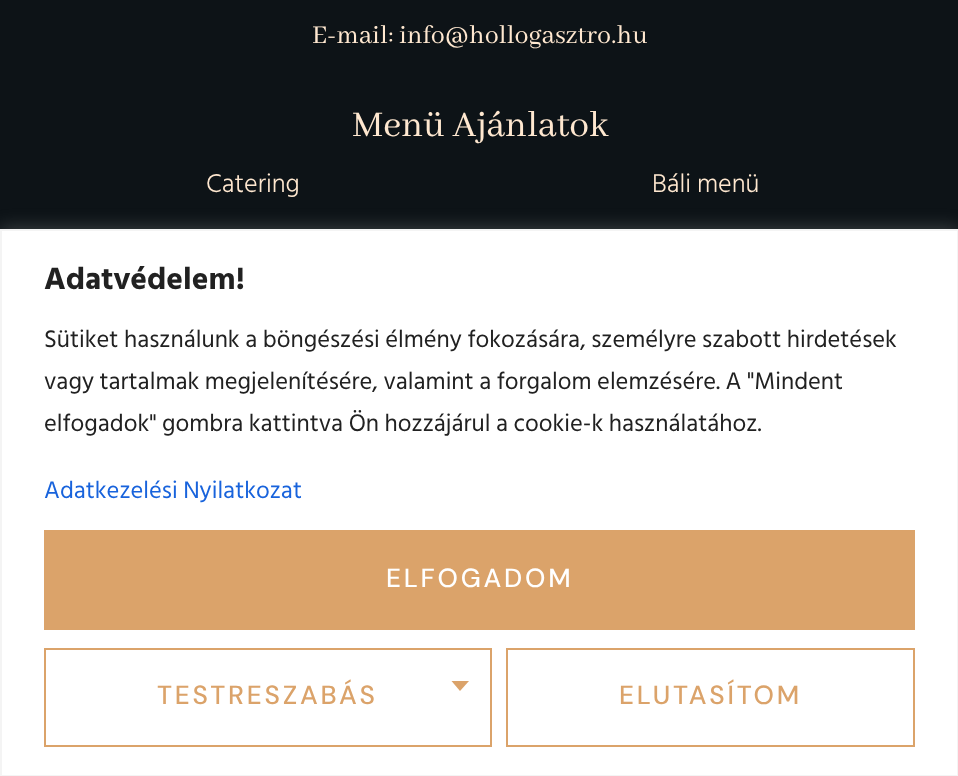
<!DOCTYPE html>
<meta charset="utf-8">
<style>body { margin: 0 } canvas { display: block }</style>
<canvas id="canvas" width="958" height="776"></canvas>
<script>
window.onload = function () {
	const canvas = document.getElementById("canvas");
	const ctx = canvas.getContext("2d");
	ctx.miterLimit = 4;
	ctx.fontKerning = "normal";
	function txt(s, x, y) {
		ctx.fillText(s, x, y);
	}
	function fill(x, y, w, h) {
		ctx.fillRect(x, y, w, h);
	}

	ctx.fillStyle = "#0D1317";
	fill(0, 0, 958, 776);
	ctx.fillStyle = "rgba(172, 171, 171, 0.3)";
	ctx.filter = "blur(9px)";
	ctx.beginPath();
	ctx.rect(0, 228, 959, 547);
	ctx.fill();
	ctx.filter = "none";
	ctx.fillStyle = "#FFFFFF";
	ctx.beginPath();
	ctx.rect(1, 230, 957, 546);
	ctx.fill();
	ctx.strokeStyle = "#F4F4F4";
	ctx.lineWidth = 2;
	ctx.stroke();
	ctx.fillStyle = "#DBA36A";
	fill(44, 530, 871, 100);
	ctx.strokeStyle = "#DBA36A";
	ctx.strokeRect(45, 649, 446, 97);
	ctx.beginPath();
	ctx.moveTo(451.5, 681);
	ctx.lineTo(469, 681);
	ctx.lineTo(460, 691);
	ctx.closePath();
	ctx.fill();
	ctx.strokeRect(507, 649, 407, 97);
	ctx.font = "28px Abhaya Libre";
	ctx.fillStyle = "#FFE8D0";
	txt("E-mail: info@hollogasztro.hu", 312, 43);
	ctx.font = "39.5px Abhaya Libre";
	txt("Menü Ajánlatok", 352, 136);
	ctx.font = "300 26.25px Hind Siliguri";
	txt("Catering", 206, 192);
	txt("Báli menü", 652, 192);
	ctx.font = "bold 31.5px Hind Siliguri";
	ctx.fillStyle = "#212121";
	txt("Adatvédelem!", 44, 289);
	ctx.font = "24.5px Hind Siliguri";
	txt("Sütiket használunk a böngészési élmény fokozására, személyre szabott hirdetések", 44, 347);
	txt("vagy tartalmak megjelenítésére, valamint a forgalom elemzésére. A \"Mindent", 44, 389);
	txt("elfogadok\" gombra kattintva Ön hozzájárul a cookie-k használatához.", 44, 431);
	ctx.fillStyle = "#1863DC";
	txt("Adatkezelési Nyilatkozat", 44, 498);
	ctx.letterSpacing = "2.75px";
	ctx.font = "500 26.25px DM Sans";
	ctx.fillStyle = "#FFFFFF";
	txt("ELFOGADOM", 386, 587);
	ctx.fillStyle = "#DBA36A";
	txt("TESTRESZABÁS", 157, 704);
	txt("ELUTASÍTOM", 619, 704);
};
</script>
